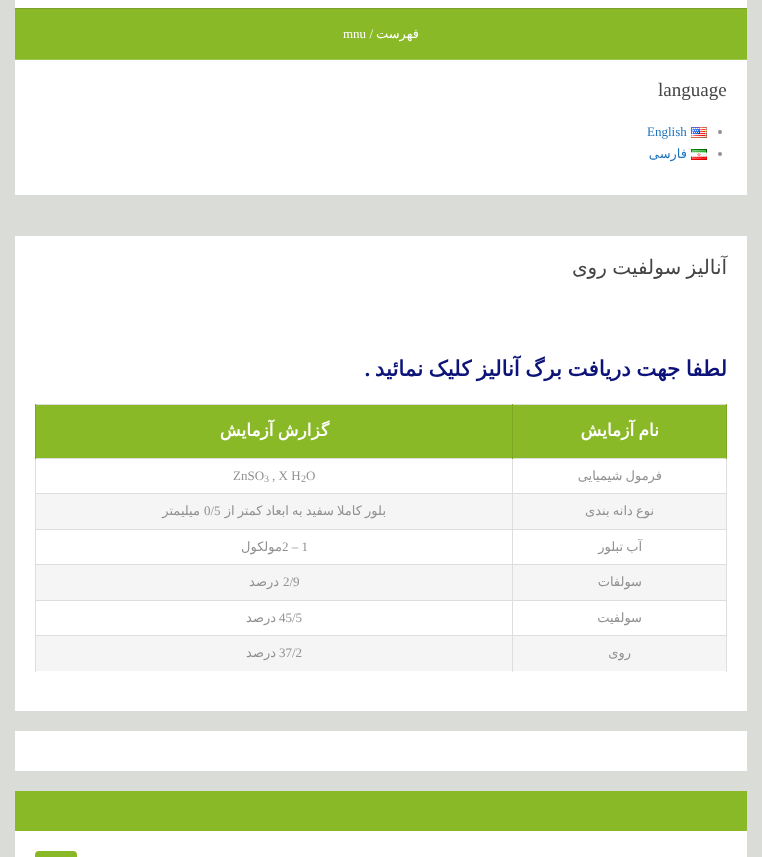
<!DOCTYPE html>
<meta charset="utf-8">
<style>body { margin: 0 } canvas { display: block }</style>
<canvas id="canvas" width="762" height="857"></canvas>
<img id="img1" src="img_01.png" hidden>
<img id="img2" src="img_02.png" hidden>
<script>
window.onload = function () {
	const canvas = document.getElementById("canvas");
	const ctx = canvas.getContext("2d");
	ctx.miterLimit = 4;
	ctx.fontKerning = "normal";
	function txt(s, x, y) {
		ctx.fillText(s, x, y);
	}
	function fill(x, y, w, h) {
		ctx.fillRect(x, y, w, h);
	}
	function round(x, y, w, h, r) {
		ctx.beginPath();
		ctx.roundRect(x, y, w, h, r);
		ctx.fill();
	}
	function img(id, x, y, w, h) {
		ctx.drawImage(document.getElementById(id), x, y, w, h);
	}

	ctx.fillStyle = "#D9DCD7";
	fill(0, 0, 762, 857);
	ctx.fillStyle = "#FFFFFF";
	fill(15, 0, 732, 8);
	ctx.fillStyle = "#8AB928";
	fill(15, 9, 732, 50);
	ctx.fillStyle = "#7A9F2B";
	fill(15, 8, 732, 1);
	ctx.fillStyle = "#A1C753";
	fill(15, 59, 732, 1);
	ctx.fillStyle = "#FFFFFF";
	fill(15, 60, 732, 135);
	ctx.fillStyle = "#919191";
	ctx.beginPath();
	ctx.arc(720, 132, 2, 0, Math.PI * 2);
	ctx.fill();
	img("img1", 691, 127, 16, 11);
	ctx.beginPath();
	ctx.arc(720, 154, 2, 0, Math.PI * 2);
	ctx.fill();
	img("img2", 691, 149, 16, 11);
	ctx.fillStyle = "#FFFFFF";
	fill(15, 236, 732, 475);
	ctx.fillStyle = "#8AB928";
	fill(513, 405, 213, 53);
	ctx.fillStyle = "#DDDDDD";
	fill(35, 404, 692, 1);
	fill(35, 458, 478, 1);
	fill(35, 493, 478, 1);
	fill(35, 529, 478, 1);
	fill(35, 564, 478, 1);
	fill(35, 600, 478, 1);
	fill(35, 635, 478, 1);
	ctx.fillStyle = "#DEDEDE";
	fill(512, 635, 1, 37);
	ctx.fillStyle = "#DDDDDD";
	fill(512, 635, 215, 1);
	ctx.fillStyle = "#DEDEDE";
	fill(512, 600, 1, 36);
	ctx.fillStyle = "#DDDDDD";
	fill(512, 600, 215, 1);
	ctx.fillStyle = "#DEDEDE";
	fill(512, 564, 1, 37);
	ctx.fillStyle = "#DDDDDD";
	fill(512, 564, 215, 1);
	ctx.fillStyle = "#DEDEDE";
	fill(512, 529, 1, 36);
	ctx.fillStyle = "#DDDDDD";
	fill(512, 529, 215, 1);
	ctx.fillStyle = "#DEDEDE";
	fill(512, 493, 1, 37);
	ctx.fillStyle = "#DDDDDD";
	fill(512, 493, 215, 1);
	ctx.fillStyle = "#DEDEDE";
	fill(512, 458, 1, 36);
	ctx.fillStyle = "#DDDDDD";
	fill(512, 458, 215, 1);
	ctx.fillStyle = "#DEDEDE";
	fill(726, 635, 1, 37);
	fill(726, 600, 1, 36);
	fill(726, 564, 1, 37);
	fill(726, 529, 1, 36);
	fill(726, 493, 1, 37);
	fill(726, 458, 1, 36);
	ctx.fillStyle = "#7CA624";
	fill(726, 404, 1, 55);
	fill(512, 404, 1, 55);
	ctx.fillStyle = "#8AB928";
	fill(36, 405, 476, 53);
	ctx.fillStyle = "#DEDEDE";
	fill(35, 635, 1, 37);
	fill(35, 600, 1, 36);
	fill(35, 564, 1, 37);
	fill(35, 529, 1, 36);
	fill(35, 493, 1, 37);
	fill(35, 458, 1, 36);
	ctx.fillStyle = "#7CA624";
	fill(35, 404, 1, 55);
	ctx.fillStyle = "#F5F5F5";
	fill(513, 494, 213, 35);
	fill(36, 494, 476, 35);
	fill(513, 565, 213, 35);
	fill(36, 565, 476, 35);
	fill(513, 636, 213, 35);
	fill(36, 636, 476, 35);
	ctx.fillStyle = "#FFFFFF";
	fill(15, 731, 732, 40);
	ctx.fillStyle = "#8AB928";
	fill(15, 791, 732, 40);
	ctx.fillStyle = "#FFFFFF";
	fill(15, 831, 732, 26);
	ctx.fillStyle = "#8AB928";
	round(35, 851, 42, 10, 4);
	ctx.direction = "rtl";
	ctx.font = "13px DejaVu Sans";
	ctx.fillStyle = "#FFFFFF";
	txt("فهرست", 419, 38);
	ctx.font = "13px Liberation Serif";
	txt("/", 373, 38);
	ctx.direction = "ltr";
	txt("mnu", 343, 38);
	ctx.font = "19px Liberation Serif";
	ctx.fillStyle = "#444444";
	txt("language", 658, 96);
	ctx.font = "13px Liberation Serif";
	ctx.fillStyle = "#1E73BE";
	txt("English", 647, 136);
	ctx.direction = "rtl";
	ctx.font = "13px DejaVu Sans";
	txt("فارسی", 687, 158);
	ctx.wordSpacing = "-1px";
	ctx.font = "20px DejaVu Sans";
	ctx.fillStyle = "#444444";
	txt("آنالیز سولفیت روی", 727, 274);
	ctx.wordSpacing = "-1.25px";
	ctx.font = "bold 21.3px DejaVu Sans";
	ctx.fillStyle = "#0D1479";
	txt("لطفا جهت دریافت برگ آنالیز کلیک نمائید", 727, 376);
	ctx.wordSpacing = "0px";
	ctx.font = "bold 21.3px Liberation Serif";
	txt(".", 370, 376);
	ctx.wordSpacing = "-1px";
	ctx.font = "bold 17px DejaVu Sans";
	ctx.fillStyle = "#FFFFFF";
	txt("نام آزمایش", 659, 436);
	txt("گزارش آزمایش", 329, 436);
	ctx.font = "13px DejaVu Sans";
	ctx.fillStyle = "#919191";
	txt("فرمول شیمیایی", 662, 480);
	ctx.wordSpacing = "0px";
	ctx.direction = "ltr";
	ctx.font = "13px Liberation Serif";
	txt("O", 306, 480);
	ctx.font = "10px Liberation Serif";
	txt("2", 301, 482);
	ctx.font = "13px Liberation Serif";
	txt(", X H", 272, 480);
	ctx.font = "10px Liberation Serif";
	txt("3", 264, 482);
	ctx.font = "13px Liberation Serif";
	txt("ZnSO", 233, 480);
	ctx.wordSpacing = "-1px";
	ctx.direction = "rtl";
	ctx.font = "13px DejaVu Sans";
	txt("نوع دانه بندی", 654, 515);
	txt("بلور کاملا سفید به ابعاد کمتر از", 386, 515);
	ctx.wordSpacing = "0px";
	ctx.direction = "ltr";
	ctx.font = "13px Liberation Serif";
	txt("0/5", 204, 515);
	ctx.direction = "rtl";
	ctx.font = "13px DejaVu Sans";
	txt("میلیمتر", 200, 515);
	ctx.wordSpacing = "-1px";
	txt("آب تبلور", 642, 551);
	ctx.wordSpacing = "0px";
	ctx.direction = "ltr";
	ctx.font = "13px Liberation Serif";
	txt("2 – 1", 282, 551);
	ctx.direction = "rtl";
	ctx.font = "13px DejaVu Sans";
	txt("مولکول", 282, 551);
	txt("سولفات", 642, 586);
	ctx.direction = "ltr";
	ctx.font = "13px Liberation Serif";
	txt("2/9", 283, 586);
	ctx.direction = "rtl";
	ctx.font = "13px DejaVu Sans";
	txt("درصد", 279, 586);
	txt("سولفیت", 642, 622);
	ctx.direction = "ltr";
	ctx.font = "13px Liberation Serif";
	txt("45/5", 279, 622);
	ctx.direction = "rtl";
	ctx.font = "13px DejaVu Sans";
	txt("درصد", 276, 622);
	txt("روی", 631, 657);
	ctx.direction = "ltr";
	ctx.font = "13px Liberation Serif";
	txt("37/2", 279, 657);
	ctx.direction = "rtl";
	ctx.font = "13px DejaVu Sans";
	txt("درصد", 276, 657);
};
</script>
